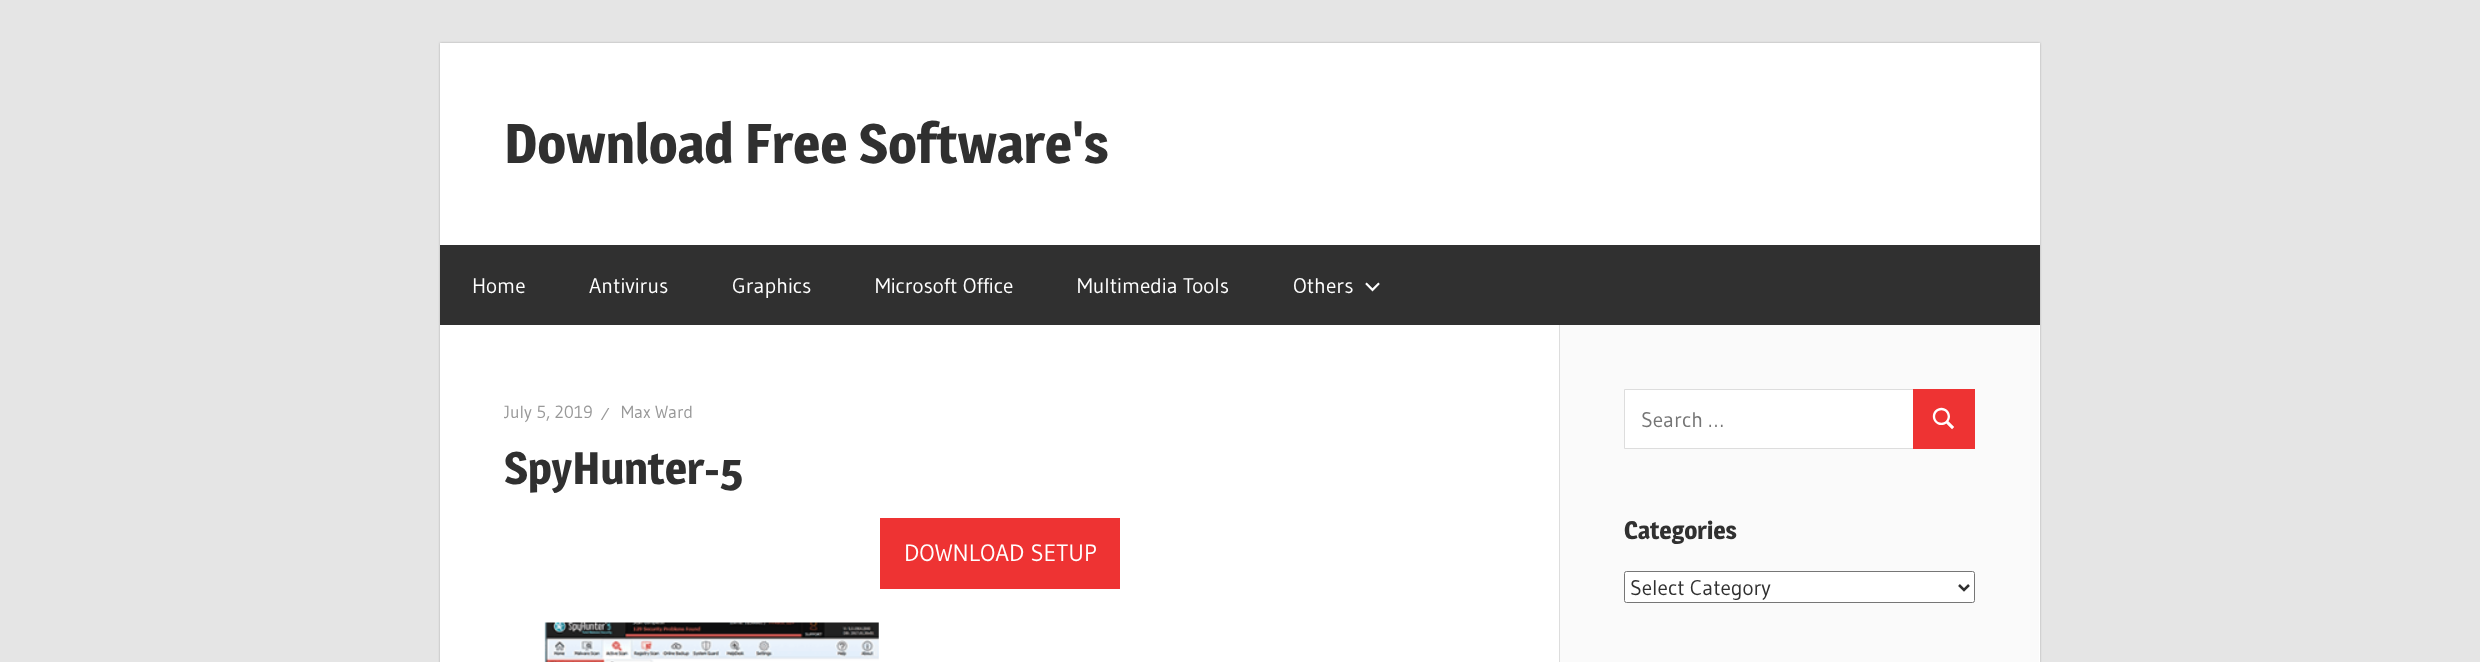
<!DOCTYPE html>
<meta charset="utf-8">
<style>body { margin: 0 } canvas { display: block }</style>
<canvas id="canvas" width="2480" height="662"></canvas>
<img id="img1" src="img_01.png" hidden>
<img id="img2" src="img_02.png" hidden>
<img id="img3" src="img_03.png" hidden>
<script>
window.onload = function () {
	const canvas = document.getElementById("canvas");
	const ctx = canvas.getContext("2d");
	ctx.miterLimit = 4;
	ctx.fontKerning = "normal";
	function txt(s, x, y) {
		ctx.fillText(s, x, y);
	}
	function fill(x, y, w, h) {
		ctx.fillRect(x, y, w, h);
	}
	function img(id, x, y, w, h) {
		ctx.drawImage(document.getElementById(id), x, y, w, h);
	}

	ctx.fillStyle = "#E5E5E5";
	fill(0, 0, 2480, 662);
	ctx.fillStyle = "#AAAAAA";
	ctx.filter = "blur(1px)";
	ctx.beginPath();
	ctx.rect(440, 43, 1600, 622);
	ctx.fill();
	ctx.filter = "none";
	ctx.fillStyle = "#FFFFFF";
	fill(440, 43, 1600, 619);
	ctx.fillStyle = "#303030";
	fill(440, 245, 1600, 80);
	img("img1", 1365, 282, 15, 10);
	ctx.fillStyle = "#EE3333";
	fill(880, 518, 240, 71);
	img("img2", 544, 622, 335, 40);
	ctx.fillStyle = "#FAFAFA";
	fill(1560, 325, 479, 337);
	ctx.fillStyle = "#DDDDDD";
	fill(1559, 325, 1, 337);
	ctx.fillStyle = "#FFFFFF";
	ctx.beginPath();
	ctx.rect(1624.5, 389.5, 289, 59);
	ctx.fill();
	ctx.strokeStyle = "#DDDDDD";
	ctx.stroke();
	ctx.fillStyle = "#EE3333";
	fill(1913, 389, 62, 60);
	img("img3", 1932, 407, 22, 23);
	ctx.fillStyle = "#FFFFFF";
	ctx.beginPath();
	ctx.roundRect(1624.5, 571.5, 350, 31, 2);
	ctx.fill();
	ctx.strokeStyle = "#767676";
	ctx.stroke();
	ctx.beginPath();
	ctx.moveTo(1959, 585);
	ctx.lineTo(1964, 590);
	ctx.lineTo(1969, 585);
	ctx.strokeStyle = "#303030";
	ctx.lineWidth = 2.5;
	ctx.stroke();
	ctx.font = "bold 55px Magra";
	ctx.fillStyle = "#303030";
	txt("Download Free Software's", 504, 163);
	ctx.font = "21.25px Gudea";
	ctx.fillStyle = "#FFFFFF";
	txt("Home", 472, 293);
	txt("Antivirus", 589, 293);
	txt("Graphics", 732, 293);
	txt("Microsoft Office", 875, 293);
	txt("Multimedia Tools", 1077, 293);
	txt("Others", 1293, 293);
	ctx.font = "17.5px Gudea";
	ctx.fillStyle = "#999999";
	txt("July 5, 2019", 504, 418);
	txt("⁄", 601, 420);
	txt("Max Ward", 621, 418);
	ctx.font = "bold 45px Magra";
	ctx.fillStyle = "#303030";
	txt("SpyHunter-5", 504, 484);
	ctx.font = "23.75px Gudea";
	ctx.fillStyle = "#FFFFFF";
	txt("DOWNLOAD SETUP", 904, 561);
	ctx.font = "21.25px Gudea";
	ctx.fillStyle = "#757575";
	txt("Search …", 1641, 427);
	ctx.font = "bold 25px Magra";
	ctx.fillStyle = "#303030";
	txt("Categories", 1624, 539);
	ctx.font = "21.25px Gudea";
	txt("Select Category", 1630, 595);
};
</script>
